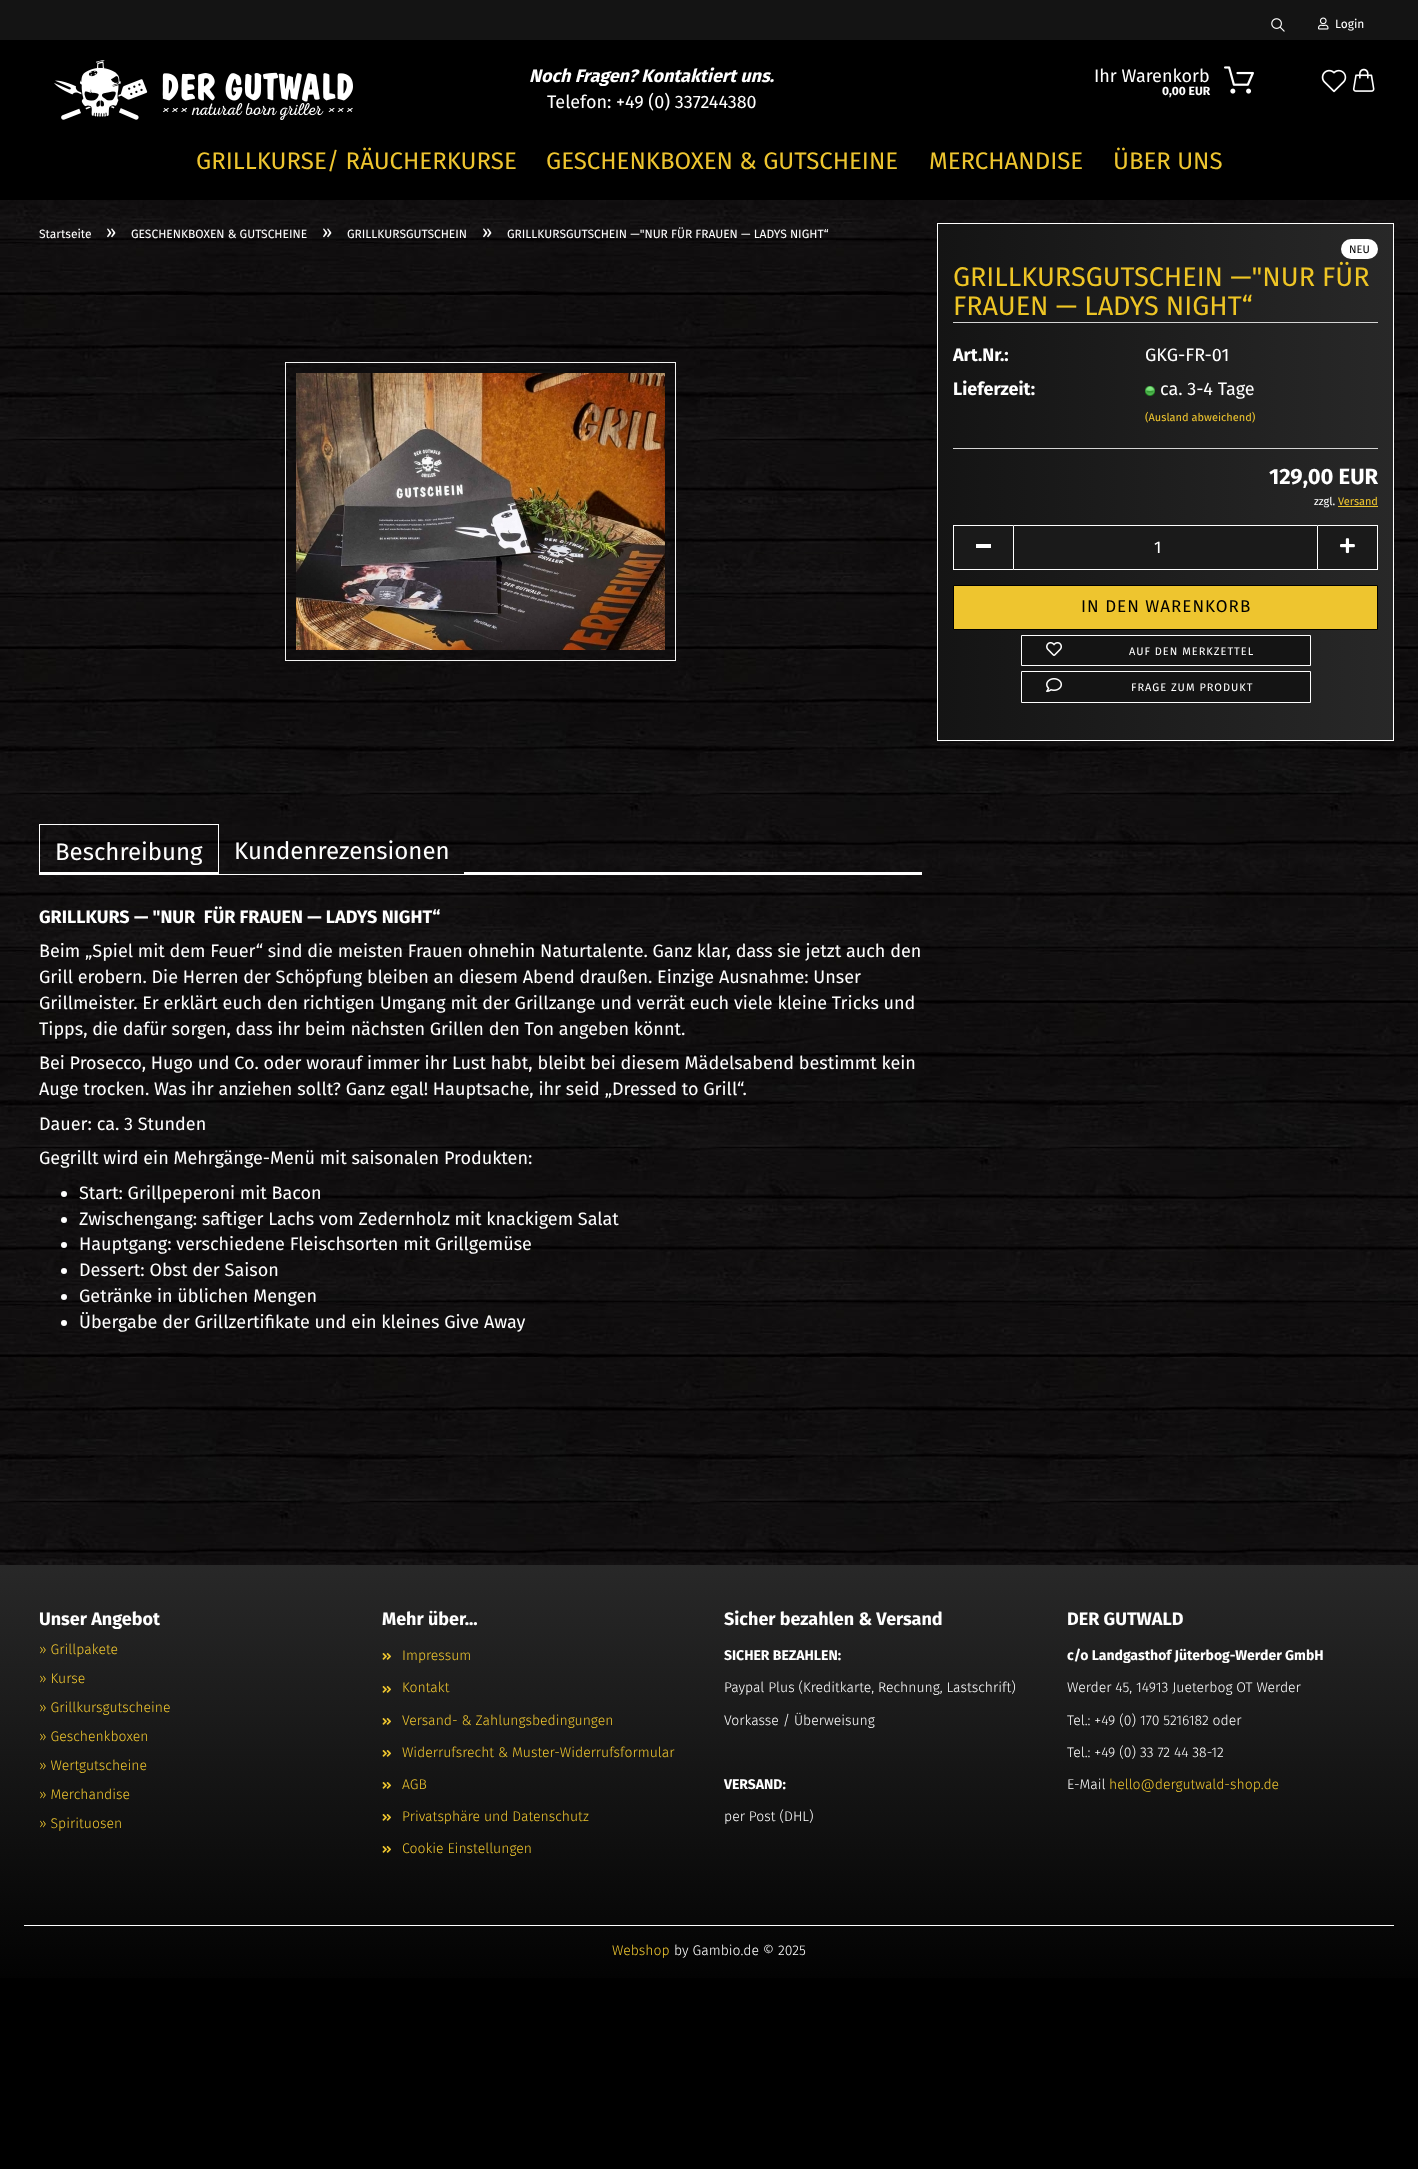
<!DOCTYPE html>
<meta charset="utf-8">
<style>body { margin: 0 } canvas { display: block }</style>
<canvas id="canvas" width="1418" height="2169"></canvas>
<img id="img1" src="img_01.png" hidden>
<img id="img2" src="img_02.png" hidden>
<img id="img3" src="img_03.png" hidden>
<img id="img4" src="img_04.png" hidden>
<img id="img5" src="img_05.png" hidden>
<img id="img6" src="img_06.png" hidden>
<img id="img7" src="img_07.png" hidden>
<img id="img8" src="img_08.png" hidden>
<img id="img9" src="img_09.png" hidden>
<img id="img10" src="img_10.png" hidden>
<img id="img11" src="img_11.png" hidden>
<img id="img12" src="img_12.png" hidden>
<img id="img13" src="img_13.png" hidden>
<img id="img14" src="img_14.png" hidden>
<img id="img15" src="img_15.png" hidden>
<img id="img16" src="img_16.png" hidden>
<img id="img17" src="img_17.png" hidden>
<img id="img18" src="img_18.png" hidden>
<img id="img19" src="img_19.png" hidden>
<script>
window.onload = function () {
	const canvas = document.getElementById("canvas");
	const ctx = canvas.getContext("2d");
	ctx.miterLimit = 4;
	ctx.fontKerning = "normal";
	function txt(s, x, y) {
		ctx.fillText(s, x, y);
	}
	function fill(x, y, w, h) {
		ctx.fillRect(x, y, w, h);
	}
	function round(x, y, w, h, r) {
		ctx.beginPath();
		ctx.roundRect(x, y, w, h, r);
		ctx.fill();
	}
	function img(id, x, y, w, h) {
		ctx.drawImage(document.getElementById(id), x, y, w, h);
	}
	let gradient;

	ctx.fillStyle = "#000000";
	fill(0, 0, 1418, 2169);
	img("img1", 0, 200, 1418, 1365);
	ctx.fillStyle = "#141414";
	fill(0, 0, 1418, 40);
	img("img2", 1271, 18, 14, 14);
	img("img3", 1318, 17, 11, 13);
	img("img4", 54, 60, 299, 60);
	img("img5", 1224, 66, 30, 28);
	img("img6", 1321, 69, 26, 24);
	img("img7", 1352, 68, 23, 24);
	ctx.strokeStyle = "#F3F3F3";
	ctx.strokeRect(285.5, 362.5, 390, 298);
	img("img8", 296, 373, 369, 277);
	gradient = ctx.createLinearGradient(938, 482, 1393, 482);
	gradient.addColorStop(0, "#141414");
	gradient.addColorStop(1, "#282828");
	ctx.fillStyle = gradient;
	fill(938, 224, 455, 516);
	ctx.strokeStyle = "#FFFFFF";
	ctx.strokeRect(937.5, 223.5, 456, 517);
	ctx.fillStyle = "#FFFFFF";
	round(1341, 239, 37, 20, 10);
	ctx.fillStyle = "#D5D5D5";
	fill(953, 322, 425, 1);
	fill(953, 448, 425, 1);
	img("img9", 1145, 386, 10, 10);
	ctx.fillStyle = "#EEC52F";
	fill(1338, 506, 40, 1);
	ctx.fillStyle = "#1A1A1A";
	fill(954, 526, 59, 43);
	ctx.fillStyle = "#FFFFFF";
	fill(953, 525, 60, 1);
	fill(953, 569, 60, 1);
	fill(953, 525, 1, 45);
	fill(976, 544, 15, 4);
	ctx.fillStyle = "#1A1A1A";
	ctx.beginPath();
	ctx.rect(1013.5, 525.5, 304, 44);
	ctx.fill();
	ctx.stroke();
	fill(1318, 526, 59, 43);
	ctx.fillStyle = "#FFFFFF";
	fill(1318, 525, 60, 1);
	fill(1377, 525, 1, 45);
	fill(1318, 569, 60, 1);
	img("img10", 1340, 538, 15, 16);
	ctx.fillStyle = "#EEC52F";
	ctx.beginPath();
	ctx.rect(953.5, 585.5, 424, 44);
	ctx.fill();
	ctx.strokeStyle = "#000000";
	ctx.stroke();
	ctx.fillStyle = "#141414";
	ctx.beginPath();
	ctx.rect(1021.5, 635.5, 289, 30);
	ctx.fill();
	ctx.strokeStyle = "#FFFFFF";
	ctx.stroke();
	img("img11", 1046, 642, 16, 14);
	ctx.beginPath();
	ctx.rect(1021.5, 671.5, 289, 31);
	ctx.fill();
	ctx.stroke();
	img("img12", 1046, 678, 16, 14);
	ctx.fillStyle = "#FFFFFF";
	fill(39, 872, 883, 3);
	fill(39, 824, 180, 1);
	fill(218, 824, 1, 51);
	fill(39, 824, 1, 51);
	ctx.fillStyle = "#141414";
	fill(219, 871, 245, 3);
	ctx.fillStyle = "#FFFFFF";
	ctx.beginPath();
	ctx.arc(64, 1194, 3, 0, Math.PI * 2);
	ctx.fill();
	ctx.beginPath();
	ctx.arc(64, 1220, 3, 0, Math.PI * 2);
	ctx.fill();
	ctx.beginPath();
	ctx.arc(64, 1245, 3, 0, Math.PI * 2);
	ctx.fill();
	ctx.beginPath();
	ctx.arc(64, 1271, 3, 0, Math.PI * 2);
	ctx.fill();
	ctx.beginPath();
	ctx.arc(64, 1297, 3, 0, Math.PI * 2);
	ctx.fill();
	ctx.beginPath();
	ctx.arc(64, 1323, 3, 0, Math.PI * 2);
	ctx.fill();
	gradient = ctx.createLinearGradient(709, 2006, 709, 1565);
	gradient.addColorStop(0, "#000000");
	gradient.addColorStop(1, "#282828");
	ctx.fillStyle = gradient;
	fill(0, 1565, 1418, 413);
	ctx.fillStyle = "#FFFFFF";
	fill(24, 1925, 1370, 1);
	img("img13", 382, 1653, 9, 7);
	img("img14", 382, 1686, 9, 7);
	img("img15", 382, 1718, 9, 7);
	img("img16", 382, 1750, 9, 7);
	img("img17", 382, 1782, 9, 7);
	img("img18", 382, 1814, 9, 7);
	img("img19", 382, 1846, 9, 7);
	ctx.font = "12px Fira Sans";
	txt("Login", 1335, 28);
	ctx.font = "italic bold 18px Fira Sans";
	txt("Noch Fragen? Kontaktiert uns.", 529, 82);
	ctx.font = "18px Fira Sans";
	txt("Telefon: +49 (0) 337244380", 547, 108);
	txt("Ihr Warenkorb", 1094, 82);
	ctx.font = "bold 12px Fira Sans";
	txt("0,00 EUR", 1162, 95);
	ctx.font = "24px Fira Sans";
	ctx.fillStyle = "#EEC52F";
	txt("GRILLKURSE/ RÄUCHERKURSE", 196, 169);
	txt("GESCHENKBOXEN & GUTSCHEINE", 546, 169);
	txt("MERCHANDISE", 929, 169);
	txt("ÜBER UNS", 1113, 169);
	ctx.font = "12px Fira Sans";
	ctx.fillStyle = "#FFFFFF";
	txt("Startseite", 39, 238);
	ctx.font = "18px Fira Sans";
	txt("»", 106, 238);
	ctx.font = "12px Fira Sans";
	txt("GESCHENKBOXEN & GUTSCHEINE", 131, 238);
	ctx.font = "18px Fira Sans";
	txt("»", 322, 238);
	ctx.font = "12px Fira Sans";
	txt("GRILLKURSGUTSCHEIN", 347, 238);
	ctx.font = "18px Fira Sans";
	txt("»", 482, 238);
	ctx.font = "12px Fira Sans";
	txt("GRILLKURSGUTSCHEIN —\"NUR FÜR FRAUEN — LADYS NIGHT“", 507, 238);
	ctx.font = "11px Fira Sans";
	ctx.fillStyle = "#000000";
	txt("NEU", 1349, 253);
	ctx.font = "27px Fira Sans";
	ctx.fillStyle = "#EEC525";
	txt("GRILLKURSGUTSCHEIN —\"NUR FÜR", 953, 286);
	txt("FRAUEN — LADYS NIGHT“", 953, 315);
	ctx.font = "bold 18px Fira Sans";
	ctx.fillStyle = "#FFFFFF";
	txt("Art.Nr.:", 953, 361);
	ctx.font = "18px Fira Sans";
	txt("GKG-FR-01", 1145, 361);
	ctx.font = "bold 18px Fira Sans";
	txt("Lieferzeit:", 953, 395);
	ctx.font = "18px Fira Sans";
	txt("ca. 3-4 Tage", 1160, 395);
	ctx.font = "11px Fira Sans";
	ctx.fillStyle = "#EEC52F";
	txt("(Ausland abweichend)", 1145, 421);
	ctx.font = "bold 22px Fira Sans";
	ctx.fillStyle = "#FFFFFF";
	txt("129,00 EUR", 1269, 484);
	ctx.font = "11px Fira Sans";
	txt("zzgl.", 1314, 505);
	ctx.fillStyle = "#EEC52F";
	txt("Versand", 1338, 505);
	ctx.font = "17px Fira Sans";
	ctx.fillStyle = "#FFFFFF";
	txt("1", 1154, 553);
	ctx.letterSpacing = "1px";
	ctx.fillStyle = "#000000";
	txt("IN DEN WARENKORB", 1081, 612);
	ctx.font = "11px Fira Sans";
	ctx.fillStyle = "#FFFFFF";
	txt("AUF DEN MERKZETTEL", 1129, 655);
	txt("FRAGE ZUM PRODUKT", 1131, 691);
	ctx.letterSpacing = "0px";
	ctx.font = "24px Fira Sans";
	txt("Beschreibung", 55, 860);
	txt("Kundenrezensionen", 234, 859);
	ctx.font = "bold 18px Fira Sans";
	txt("GRILLKURS — \"NUR  FÜR FRAUEN — LADYS NIGHT“", 39, 923);
	ctx.font = "18px Fira Sans";
	txt("Beim „Spiel mit dem Feuer“ sind die meisten Frauen ohnehin Naturtalente. Ganz klar, dass sie jetzt auch den", 39, 957);
	txt("Grill erobern. Die Herren der Schöpfung bleiben an diesem Abend draußen. Einzige Ausnahme: Unser", 39, 983);
	txt("Grillmeister. Er erklärt euch den richtigen Umgang mit der Grillzange und verrät euch viele kleine Tricks und", 39, 1009);
	txt("Tipps, die dafür sorgen, dass ihr beim nächsten Grillen den Ton angeben könnt.", 39, 1035);
	txt("Bei Prosecco, Hugo und Co. oder worauf immer ihr Lust habt, bleibt bei diesem Mädelsabend bestimmt kein", 39, 1069);
	txt("Auge trocken. Was ihr anziehen sollt? Ganz egal! Hauptsache, ihr seid „Dressed to Grill“.", 39, 1095);
	txt("Dauer: ca. 3 Stunden", 39, 1130);
	txt("Gegrillt wird ein Mehrgänge-Menü mit saisonalen Produkten:", 39, 1164);
	txt("Start: Grillpeperoni mit Bacon", 79, 1199);
	txt("Zwischengang: saftiger Lachs vom Zedernholz mit knackigem Salat", 79, 1225);
	txt("Hauptgang: verschiedene Fleischsorten mit Grillgemüse", 79, 1250);
	txt("Dessert: Obst der Saison", 79, 1276);
	txt("Getränke in üblichen Mengen", 79, 1302);
	txt("Übergabe der Grillzertifikate und ein kleines Give Away", 79, 1328);
	ctx.font = "bold 18px Fira Sans";
	txt("Unser Angebot", 39, 1625);
	ctx.font = "300 14px Fira Sans";
	ctx.fillStyle = "#EEC52F";
	txt("» Grillpakete", 39, 1654);
	txt("» Kurse", 39, 1683);
	txt("» Grillkursgutscheine", 39, 1712);
	txt("» Geschenkboxen", 39, 1741);
	txt("» Wertgutscheine", 39, 1770);
	txt("» Merchandise", 39, 1799);
	txt("» Spirituosen", 39, 1828);
	ctx.font = "bold 18px Fira Sans";
	ctx.fillStyle = "#FFFFFF";
	txt("Mehr über...", 382, 1625);
	ctx.font = "300 14px Fira Sans";
	ctx.fillStyle = "#EEC52F";
	txt("Impressum", 402, 1660);
	txt("Kontakt", 402, 1692);
	txt("Versand- & Zahlungsbedingungen", 402, 1725);
	txt("Widerrufsrecht & Muster-Widerrufsformular", 402, 1757);
	txt("AGB", 402, 1789);
	txt("Privatsphäre und Datenschutz", 402, 1821);
	txt("Cookie Einstellungen", 402, 1853);
	ctx.font = "bold 18px Fira Sans";
	ctx.fillStyle = "#FFFFFF";
	txt("Sicher bezahlen & Versand", 724, 1625);
	ctx.font = "bold 14px Fira Sans";
	txt("SICHER BEZAHLEN:", 724, 1660);
	ctx.font = "300 14px Fira Sans";
	txt("Paypal Plus (Kreditkarte, Rechnung, Lastschrift)", 724, 1692);
	txt("Vorkasse / Überweisung", 724, 1725);
	ctx.font = "bold 14px Fira Sans";
	txt("VERSAND:", 724, 1789);
	ctx.font = "300 14px Fira Sans";
	txt("per Post (DHL)", 724, 1821);
	ctx.font = "bold 18px Fira Sans";
	txt("DER GUTWALD", 1067, 1625);
	ctx.font = "bold 14px Fira Sans";
	txt("c/o Landgasthof Jüterbog-Werder GmbH", 1067, 1660);
	ctx.font = "300 14px Fira Sans";
	txt("Werder 45, 14913 Jueterbog OT Werder", 1067, 1692);
	txt("Tel.: +49 (0) 170 5216182 oder", 1067, 1725);
	txt("Tel.: +49 (0) 33 72 44 38-12", 1067, 1757);
	txt("E-Mail", 1067, 1789);
	ctx.fillStyle = "#EEC52F";
	txt("hello@dergutwald-shop.de", 1109, 1789);
	txt("Webshop", 612, 1955);
	ctx.fillStyle = "#FFFFFF";
	txt("by Gambio.de © 2025", 674, 1955);
};
</script>
